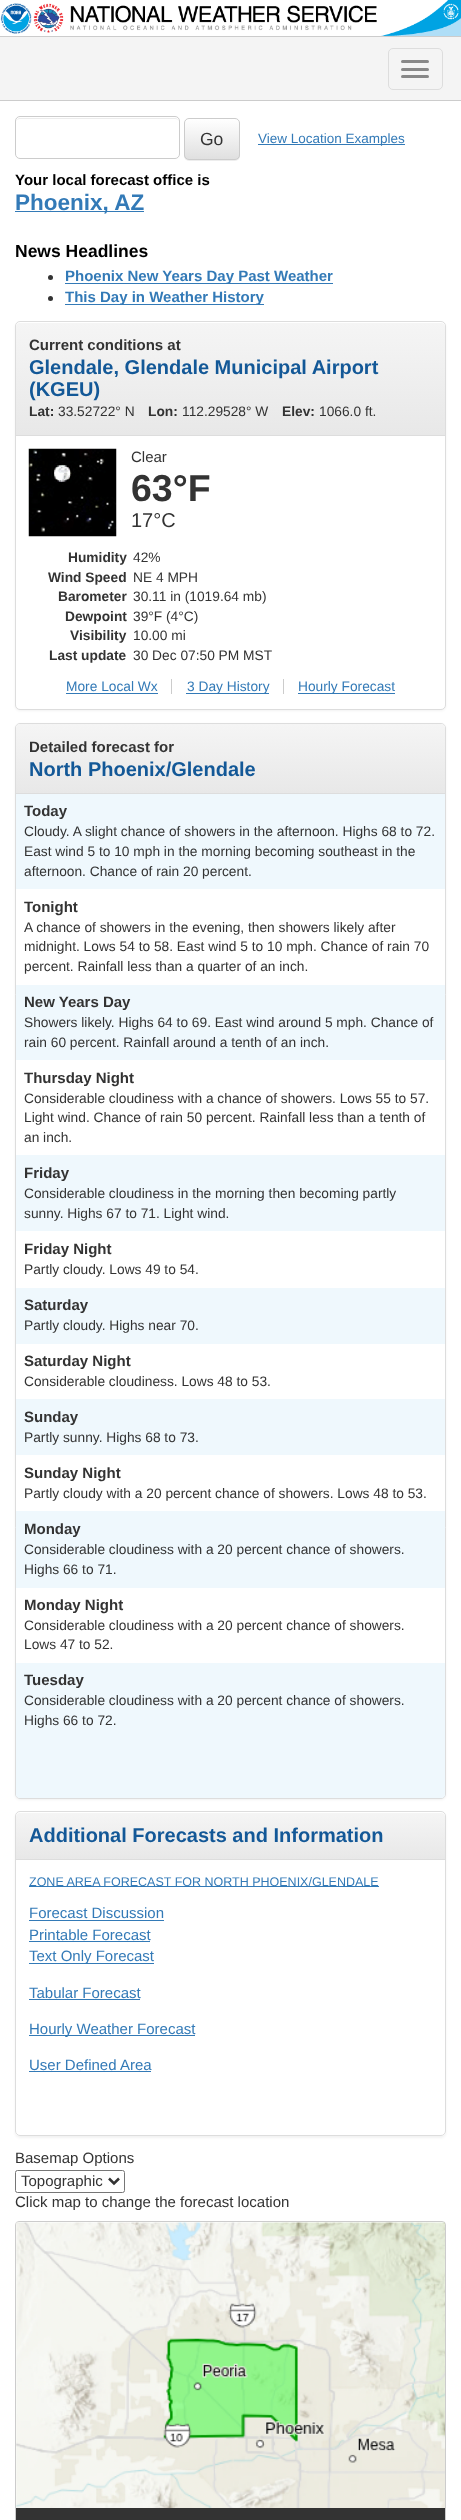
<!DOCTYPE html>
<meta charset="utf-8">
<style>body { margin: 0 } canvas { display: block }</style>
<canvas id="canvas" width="461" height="2520"></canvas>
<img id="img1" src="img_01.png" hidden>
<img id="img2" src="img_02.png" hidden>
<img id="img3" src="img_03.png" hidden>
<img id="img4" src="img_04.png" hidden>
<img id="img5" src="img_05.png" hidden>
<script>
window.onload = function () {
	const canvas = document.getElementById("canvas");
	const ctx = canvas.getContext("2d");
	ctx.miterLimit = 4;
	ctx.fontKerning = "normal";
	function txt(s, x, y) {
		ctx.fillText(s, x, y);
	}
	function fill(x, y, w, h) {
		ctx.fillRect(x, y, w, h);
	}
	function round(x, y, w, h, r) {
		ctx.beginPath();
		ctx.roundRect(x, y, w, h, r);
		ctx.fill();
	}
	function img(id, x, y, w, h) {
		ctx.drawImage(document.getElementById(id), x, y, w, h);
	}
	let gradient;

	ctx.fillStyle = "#FFFFFF";
	fill(0, 0, 461, 2520);
	img("img1", 0, 3, 32, 31);
	img("img2", 33, 3, 344, 30);
	img("img3", 380, 0, 81, 36);
	ctx.fillStyle = "#F4F4F4";
	fill(0, 37, 461, 63);
	ctx.fillStyle = "#CCCCCC";
	fill(0, 36, 461, 1);
	fill(0, 100, 461, 1);
	ctx.beginPath();
	ctx.roundRect(388.5, 48.5, 54, 41, 4.5);
	ctx.strokeStyle = "#DDDDDD";
	ctx.stroke();
	ctx.fillStyle = "#888888";
	round(401, 60, 28, 3, 1.5);
	round(401, 68, 28, 3, 1.5);
	round(401, 75, 28, 3, 1.5);
	ctx.fillStyle = "#ECECEC";
	ctx.beginPath();
	ctx.moveTo(20, 119);
	ctx.lineTo(175, 119);
	ctx.bezierCurveTo(177, 119, 179, 120, 179, 122);
	ctx.bezierCurveTo(179, 120, 177, 118, 175, 118);
	ctx.lineTo(20, 118);
	ctx.bezierCurveTo(18, 118, 16, 120, 16, 122);
	ctx.bezierCurveTo(16, 120, 18, 119, 20, 119);
	ctx.closePath();
	ctx.fill();
	ctx.beginPath();
	ctx.roundRect(15.5, 116.5, 164, 42, 4.5);
	ctx.strokeStyle = "#CCCCCC";
	ctx.stroke();
	ctx.fillStyle = "rgba(0, 0, 0, 0.07)";
	ctx.filter = "blur(0.5px)";
	ctx.beginPath();
	ctx.roundRect(184, 119, 56, 42, 5);
	ctx.fill();
	ctx.filter = "none";
	ctx.save();
	ctx.beginPath();
	ctx.roundRect(184, 118, 56, 42, 5);
	ctx.clip();
	gradient = ctx.createLinearGradient(212, 119, 212, 159);
	gradient.addColorStop(0, "#FFFFFF");
	gradient.addColorStop(1, "#E0E0E0");
	ctx.fillStyle = gradient;
	fill(184, 119, 56, 40);
	ctx.restore();
	ctx.beginPath();
	ctx.roundRect(184.5, 118.5, 55, 41, 4.5);
	ctx.stroke();
	ctx.fillStyle = "#337AB7";
	fill(258, 144, 147, 1);
	fill(15, 211, 129, 1);
	ctx.fillStyle = "#333333";
	ctx.beginPath();
	ctx.arc(50.5, 277.5, 2.5, 0, Math.PI * 2);
	ctx.fill();
	ctx.fillStyle = "#337AB7";
	fill(65, 283, 268, 1);
	ctx.fillStyle = "#333333";
	ctx.beginPath();
	ctx.arc(50.5, 298.5, 2.5, 0, Math.PI * 2);
	ctx.fill();
	ctx.fillStyle = "#337AB7";
	fill(65, 304, 199, 1);
	ctx.fillStyle = "rgba(0, 0, 0, 0.05)";
	ctx.filter = "blur(1px)";
	ctx.beginPath();
	ctx.roundRect(15, 323, 431, 388, 5);
	ctx.fill();
	ctx.filter = "none";
	ctx.fillStyle = "#FFFFFF";
	ctx.beginPath();
	ctx.roundRect(15.5, 321.5, 430, 388, 4.5);
	ctx.fill();
	ctx.strokeStyle = "#DDDDDD";
	ctx.stroke();
	gradient = ctx.createLinearGradient(231, 323, 231, 435);
	gradient.addColorStop(0, "#F5F5F5");
	gradient.addColorStop(1, "#E8E8E8");
	ctx.fillStyle = gradient;
	ctx.beginPath();
	ctx.roundRect(16, 323, 429, 112, [4, 4, 0, 0]);
	ctx.fill();
	ctx.fillStyle = "#DDDDDD";
	fill(16, 435, 429, 1);
	img("img4", 28, 448, 89, 89);
	ctx.fillStyle = "#337AB7";
	fill(66, 693, 92, 1);
	ctx.fillStyle = "#CCCCCC";
	fill(171, 679, 1, 15);
	ctx.fillStyle = "#337AB7";
	fill(186, 693, 83, 1);
	ctx.fillStyle = "#CCCCCC";
	fill(283, 679, 1, 15);
	ctx.fillStyle = "#337AB7";
	fill(298, 693, 97, 1);
	ctx.fillStyle = "rgba(0, 0, 0, 0.05)";
	ctx.filter = "blur(1px)";
	ctx.beginPath();
	ctx.roundRect(15, 724, 431, 1076, 5);
	ctx.fill();
	ctx.filter = "none";
	ctx.fillStyle = "#FFFFFF";
	ctx.beginPath();
	ctx.roundRect(15.5, 723.5, 430, 1075, 4.5);
	ctx.fill();
	ctx.stroke();
	gradient = ctx.createLinearGradient(231, 724, 231, 793);
	gradient.addColorStop(0, "#F5F5F5");
	gradient.addColorStop(1, "#E8E8E8");
	ctx.fillStyle = gradient;
	ctx.beginPath();
	ctx.roundRect(16, 724, 429, 69, [4, 4, 0, 0]);
	ctx.fill();
	ctx.fillStyle = "#DDDDDD";
	fill(16, 793, 429, 1);
	ctx.fillStyle = "#EFF8FD";
	fill(16, 794, 429, 95);
	fill(16, 985, 429, 75);
	fill(16, 1155, 429, 76);
	fill(16, 1288, 429, 56);
	fill(16, 1399, 429, 56);
	fill(16, 1511, 429, 77);
	ctx.beginPath();
	ctx.roundRect(16, 1663, 429, 135, [0, 0, 4, 4]);
	ctx.fill();
	ctx.save();
	ctx.beginPath();
	ctx.moveTo(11, 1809);
	ctx.lineTo(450, 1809);
	ctx.lineTo(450, 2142);
	ctx.lineTo(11, 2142);
	ctx.closePath();
	ctx.moveTo(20, 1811);
	ctx.lineTo(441, 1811);
	ctx.bezierCurveTo(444, 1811, 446, 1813, 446, 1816);
	ctx.lineTo(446, 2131);
	ctx.bezierCurveTo(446, 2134, 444, 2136, 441, 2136);
	ctx.lineTo(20, 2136);
	ctx.bezierCurveTo(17, 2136, 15, 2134, 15, 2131);
	ctx.lineTo(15, 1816);
	ctx.bezierCurveTo(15, 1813, 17, 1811, 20, 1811);
	ctx.closePath();
	ctx.clip("evenodd");
	ctx.fillStyle = "rgba(0, 0, 0, 0.05)";
	ctx.filter = "blur(1px)";
	ctx.beginPath();
	ctx.roundRect(15, 1813, 431, 325, 5);
	ctx.fill();
	ctx.filter = "none";
	ctx.restore();
	ctx.beginPath();
	ctx.roundRect(15.5, 1811.5, 430, 324, 4.5);
	ctx.stroke();
	gradient = ctx.createLinearGradient(231, 1813, 231, 1859);
	gradient.addColorStop(0, "#F5F5F5");
	gradient.addColorStop(1, "#E8E8E8");
	ctx.fillStyle = gradient;
	ctx.beginPath();
	ctx.roundRect(16, 1813, 429, 46, [4, 4, 0, 0]);
	ctx.fill();
	ctx.fillStyle = "#DDDDDD";
	fill(16, 1859, 429, 1);
	ctx.fillStyle = "#337AB7";
	fill(29, 1886, 350, 1);
	fill(29, 1920, 135, 1);
	fill(29, 1941, 121, 1);
	fill(29, 1963, 125, 1);
	fill(29, 1999, 111, 1);
	fill(29, 2035, 166, 1);
	fill(29, 2071, 122, 1);
	ctx.beginPath();
	ctx.roundRect(15.5, 2170.5, 109, 22, 2);
	ctx.strokeStyle = "#767676";
	ctx.stroke();
	ctx.beginPath();
	ctx.moveTo(109, 2178.5);
	ctx.lineTo(114, 2183.5);
	ctx.lineTo(119, 2178.5);
	ctx.strokeStyle = "#333333";
	ctx.lineWidth = 2.5;
	ctx.stroke();
	ctx.beginPath();
	ctx.roundRect(15.5, 2221.5, 430, 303, 3.5);
	ctx.strokeStyle = "#CCCCCC";
	ctx.lineWidth = 1;
	ctx.stroke();
	img("img5", 16, 2222, 429, 286);
	ctx.fillStyle = "#333333";
	fill(16, 2508, 429, 12);
	ctx.font = "17.5px Liberation Sans";
	txt("Go", 200, 145);
	ctx.font = "13.5px Liberation Sans";
	ctx.fillStyle = "#337AB7";
	txt("View Location Examples", 258, 143);
	ctx.font = "bold 15px Liberation Sans";
	ctx.fillStyle = "#000000";
	txt("Your local forecast office is", 15, 185);
	ctx.font = "bold 22.5px Liberation Sans";
	ctx.fillStyle = "#337AB7";
	txt("Phoenix, AZ", 15, 210);
	ctx.font = "bold 17.5px Liberation Sans";
	ctx.fillStyle = "#000000";
	txt("News Headlines", 15, 257);
	ctx.font = "bold 15px Liberation Sans";
	ctx.fillStyle = "#337AB7";
	txt("Phoenix New Years Day Past Weather", 65, 281);
	txt("This Day in Weather History", 65, 302);
	ctx.fillStyle = "#333333";
	txt("Current conditions at", 29, 350);
	ctx.font = "bold 20px Liberation Sans";
	ctx.fillStyle = "#135897";
	txt("Glendale, Glendale Municipal Airport", 29, 374);
	txt("(KGEU)", 29, 396);
	ctx.font = "bold 13.75px Liberation Sans";
	ctx.fillStyle = "#333333";
	txt("Lat:", 29, 416);
	ctx.font = "13.75px Liberation Sans";
	txt("33.52722° N", 58, 416);
	ctx.font = "bold 13.75px Liberation Sans";
	txt("Lon:", 148, 416);
	ctx.font = "13.75px Liberation Sans";
	txt("112.29528° W", 182, 416);
	ctx.font = "bold 13.75px Liberation Sans";
	txt("Elev:", 282, 416);
	ctx.font = "13.75px Liberation Sans";
	txt("1066.0 ft.", 319, 416);
	ctx.font = "15px Liberation Sans";
	txt("Clear", 131, 462);
	ctx.font = "bold 37.5px Liberation Sans";
	txt("63°F", 131, 501);
	ctx.font = "20px Liberation Sans";
	txt("17°C", 131, 527);
	ctx.font = "bold 13.75px Liberation Sans";
	txt("Humidity", 68, 562);
	ctx.font = "13.75px Liberation Sans";
	txt("42%", 133, 562);
	ctx.font = "bold 13.75px Liberation Sans";
	txt("Wind Speed", 48, 582);
	ctx.font = "13.75px Liberation Sans";
	txt("NE 4 MPH", 133, 582);
	ctx.font = "bold 13.75px Liberation Sans";
	txt("Barometer", 58, 601);
	ctx.font = "13.75px Liberation Sans";
	txt("30.11 in (1019.64 mb)", 133, 601);
	ctx.font = "bold 13.75px Liberation Sans";
	txt("Dewpoint", 65, 621);
	ctx.font = "13.75px Liberation Sans";
	txt("39°F (4°C)", 133, 621);
	ctx.font = "bold 13.75px Liberation Sans";
	txt("Visibility", 70, 640);
	ctx.font = "13.75px Liberation Sans";
	txt("10.00 mi", 133, 640);
	ctx.font = "bold 13.75px Liberation Sans";
	txt("Last update", 49, 660);
	ctx.font = "13.75px Liberation Sans";
	txt("30 Dec 07:50 PM MST", 133, 660);
	ctx.fillStyle = "#337AB7";
	txt("More Local Wx", 66, 691);
	txt("3 Day History", 187, 691);
	txt("Hourly Forecast", 298, 691);
	ctx.font = "bold 15px Liberation Sans";
	ctx.fillStyle = "#333333";
	txt("Detailed forecast for", 29, 752);
	ctx.font = "bold 20px Liberation Sans";
	ctx.fillStyle = "#135897";
	txt("North Phoenix/Glendale", 29, 776);
	ctx.font = "bold 15px Liberation Sans";
	ctx.fillStyle = "#333333";
	txt("Today", 24, 816);
	ctx.font = "13.75px Liberation Sans";
	txt("Cloudy. A slight chance of showers in the afternoon. Highs 68 to 72.", 24, 836);
	txt("East wind 5 to 10 mph in the morning becoming southeast in the", 24, 856);
	txt("afternoon. Chance of rain 20 percent.", 24, 876);
	ctx.font = "bold 15px Liberation Sans";
	txt("Tonight", 24, 912);
	ctx.font = "13.75px Liberation Sans";
	txt("A chance of showers in the evening, then showers likely after", 24, 932);
	txt("midnight. Lows 54 to 58. East wind 5 to 10 mph. Chance of rain 70", 24, 951);
	txt("percent. Rainfall less than a quarter of an inch.", 24, 971);
	ctx.font = "bold 15px Liberation Sans";
	txt("New Years Day", 24, 1007);
	ctx.font = "13.75px Liberation Sans";
	txt("Showers likely. Highs 64 to 69. East wind around 5 mph. Chance of", 24, 1027);
	txt("rain 60 percent. Rainfall around a tenth of an inch.", 24, 1047);
	ctx.font = "bold 15px Liberation Sans";
	txt("Thursday Night", 24, 1083);
	ctx.font = "13.75px Liberation Sans";
	txt("Considerable cloudiness with a chance of showers. Lows 55 to 57.", 24, 1103);
	txt("Light wind. Chance of rain 50 percent. Rainfall less than a tenth of", 24, 1122);
	txt("an inch.", 24, 1142);
	ctx.font = "bold 15px Liberation Sans";
	txt("Friday", 24, 1178);
	ctx.font = "13.75px Liberation Sans";
	txt("Considerable cloudiness in the morning then becoming partly", 24, 1198);
	txt("sunny. Highs 67 to 71. Light wind.", 24, 1218);
	ctx.font = "bold 15px Liberation Sans";
	txt("Friday Night", 24, 1254);
	ctx.font = "13.75px Liberation Sans";
	txt("Partly cloudy. Lows 49 to 54.", 24, 1274);
	ctx.font = "bold 15px Liberation Sans";
	txt("Saturday", 24, 1310);
	ctx.font = "13.75px Liberation Sans";
	txt("Partly cloudy. Highs near 70.", 24, 1330);
	ctx.font = "bold 15px Liberation Sans";
	txt("Saturday Night", 24, 1366);
	ctx.font = "13.75px Liberation Sans";
	txt("Considerable cloudiness. Lows 48 to 53.", 24, 1386);
	ctx.font = "bold 15px Liberation Sans";
	txt("Sunday", 24, 1422);
	ctx.font = "13.75px Liberation Sans";
	txt("Partly sunny. Highs 68 to 73.", 24, 1442);
	ctx.font = "bold 15px Liberation Sans";
	txt("Sunday Night", 24, 1478);
	ctx.font = "13.75px Liberation Sans";
	txt("Partly cloudy with a 20 percent chance of showers. Lows 48 to 53.", 24, 1498);
	ctx.font = "bold 15px Liberation Sans";
	txt("Monday", 24, 1534);
	ctx.font = "13.75px Liberation Sans";
	txt("Considerable cloudiness with a 20 percent chance of showers.", 24, 1554);
	txt("Highs 66 to 71.", 24, 1574);
	ctx.font = "bold 15px Liberation Sans";
	txt("Monday Night", 24, 1610);
	ctx.font = "13.75px Liberation Sans";
	txt("Considerable cloudiness with a 20 percent chance of showers.", 24, 1630);
	txt("Lows 47 to 52.", 24, 1649);
	ctx.font = "bold 15px Liberation Sans";
	txt("Tuesday", 24, 1685);
	ctx.font = "13.75px Liberation Sans";
	txt("Considerable cloudiness with a 20 percent chance of showers.", 24, 1705);
	txt("Highs 66 to 72.", 24, 1725);
	ctx.font = "bold 20px Liberation Sans";
	ctx.fillStyle = "#135897";
	txt("Additional Forecasts and Information", 29, 1842);
	ctx.font = "12.5px Liberation Sans";
	ctx.fillStyle = "#337AB7";
	txt("ZONE AREA FORECAST FOR NORTH PHOENIX/GLENDALE", 29, 1886);
	ctx.font = "15px Liberation Sans";
	txt("Forecast Discussion", 29, 1918);
	txt("Printable Forecast", 29, 1940);
	txt("Text Only Forecast", 29, 1961);
	txt("Tabular Forecast", 29, 1998);
	txt("Hourly Weather Forecast", 29, 2034);
	txt("User Defined Area", 29, 2070);
	ctx.fillStyle = "#333333";
	txt("Basemap Options", 15, 2163);
	txt("Topographic", 21, 2186);
	txt("Click map to change the forecast location", 15, 2207);
};
</script>
